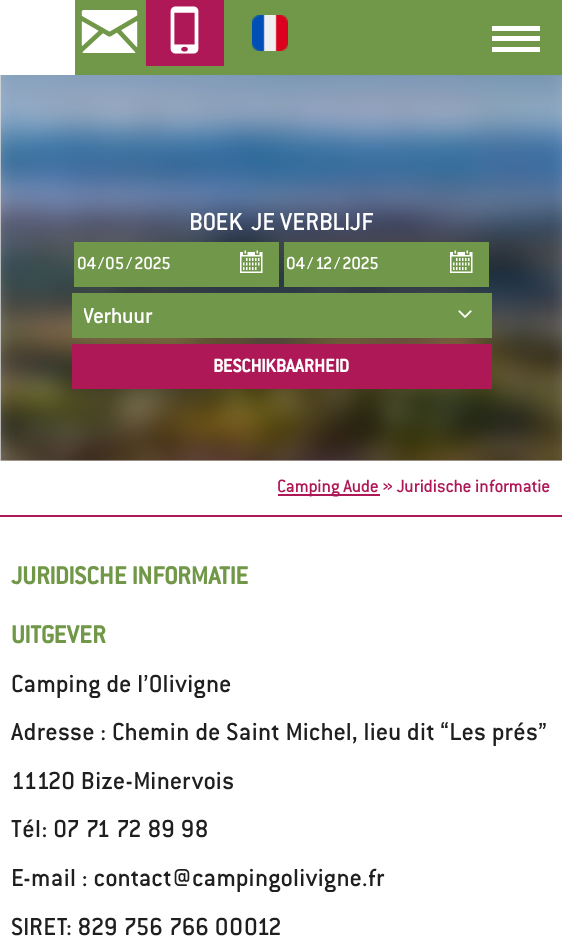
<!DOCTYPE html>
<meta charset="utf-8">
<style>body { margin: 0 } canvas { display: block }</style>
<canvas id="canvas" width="562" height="938"></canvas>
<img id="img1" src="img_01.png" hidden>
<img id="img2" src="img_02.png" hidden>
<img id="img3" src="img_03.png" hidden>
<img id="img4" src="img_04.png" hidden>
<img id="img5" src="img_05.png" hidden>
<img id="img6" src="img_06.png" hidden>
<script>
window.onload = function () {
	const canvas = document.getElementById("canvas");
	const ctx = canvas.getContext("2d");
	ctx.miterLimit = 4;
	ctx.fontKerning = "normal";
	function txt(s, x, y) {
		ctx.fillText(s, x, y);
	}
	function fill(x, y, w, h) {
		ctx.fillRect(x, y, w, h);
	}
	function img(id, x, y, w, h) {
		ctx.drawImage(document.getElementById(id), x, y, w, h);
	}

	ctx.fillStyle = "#FFFFFF";
	fill(0, 0, 562, 938);
	ctx.fillStyle = "#DEDEDE";
	fill(0, 75, 562, 386);
	ctx.fillStyle = "#719848";
	fill(75, 0, 487, 75);
	ctx.fillStyle = "#FFFFFF";
	fill(492, 26, 48, 5);
	fill(492, 36, 48, 5);
	fill(492, 47, 48, 5);
	img("img1", 81, 10, 57, 43);
	ctx.fillStyle = "#AF1857";
	fill(146, 0, 78, 66);
	img("img2", 170, 6, 29, 48);
	img("img3", 252, 15, 36, 36);
	img("img4", 0, 75, 562, 386);
	ctx.fillStyle = "#71984A";
	fill(74, 242, 205, 45);
	img("img5", 240, 250, 23, 23);
	fill(284, 242, 205, 45);
	img("img5", 450, 250, 23, 23);
	fill(72, 293, 420, 45);
	img("img6", 458, 310, 14, 8);
	ctx.fillStyle = "#AF1857";
	fill(72, 344, 420, 45);
	fill(0, 515, 562, 2);
	fill(278, 494, 102, 2);
	ctx.font = "27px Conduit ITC";
	ctx.fillStyle = "#FFFFFF";
	txt("BOEK", 189, 230);
	txt("JE VERBLIJF", 251, 230);
	ctx.font = "19px Conduit ITC";
	txt("04", 77, 269);
	txt("/", 98, 269);
	txt("05", 105, 269);
	txt("/", 126, 269);
	txt("2025", 134, 269);
	txt("04", 286, 269);
	txt("/", 307, 269);
	txt("12", 315, 269);
	txt("/", 334, 269);
	txt("2025", 342, 269);
	ctx.save();
	ctx.beginPath();
	ctx.rect(84, 297, 396, 36);
	ctx.clip();
	ctx.font = "24px Conduit ITC";
	txt("Verhuur", 83, 323);
	ctx.restore();
	ctx.font = "bold 20px Conduit ITC";
	txt("BESCHIKBAARHEID", 213, 372);
	ctx.font = "19.5px Conduit ITC";
	ctx.fillStyle = "#AF1857";
	txt("Camping Aude » Juridische informatie", 277, 492);
	ctx.font = "bold 27px Conduit ITC";
	ctx.fillStyle = "#719848";
	txt("JURIDISCHE INFORMATIE", 11, 584);
	txt("UITGEVER", 11, 643);
	ctx.letterSpacing = "0.45px";
	ctx.font = "27px Conduit ITC";
	ctx.fillStyle = "#1E1F1E";
	txt("Camping de l’Olivigne", 11, 692);
	txt("Adresse : Chemin de Saint Michel, lieu dit “Les prés”", 11, 740);
	txt("11120 Bize-Minervois", 11, 789);
	txt("Tél: 07 71 72 89 98", 11, 837);
	txt("E-mail : contact@campingolivigne.fr", 11, 886);
	txt("SIRET: 829 756 766 00012", 11, 935);
};
</script>
